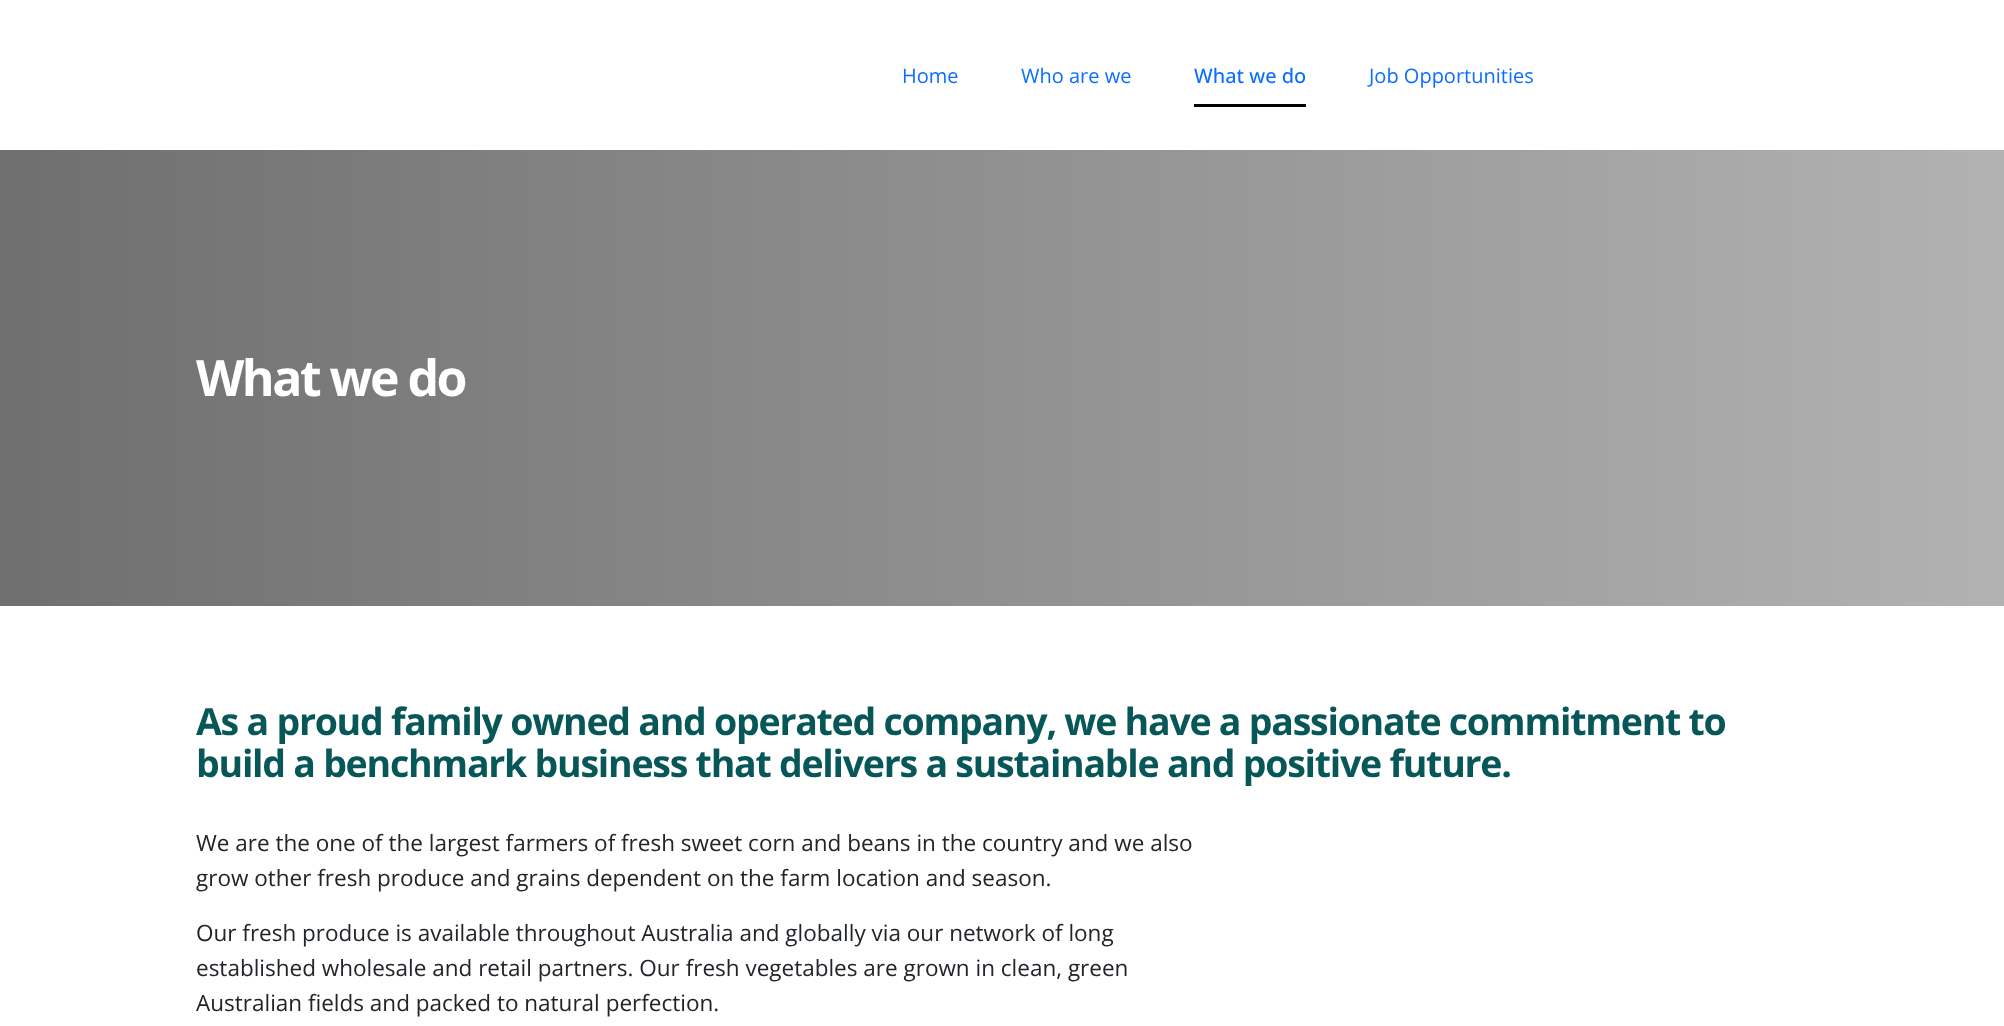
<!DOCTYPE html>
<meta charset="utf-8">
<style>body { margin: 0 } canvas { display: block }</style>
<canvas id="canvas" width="2004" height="1026"></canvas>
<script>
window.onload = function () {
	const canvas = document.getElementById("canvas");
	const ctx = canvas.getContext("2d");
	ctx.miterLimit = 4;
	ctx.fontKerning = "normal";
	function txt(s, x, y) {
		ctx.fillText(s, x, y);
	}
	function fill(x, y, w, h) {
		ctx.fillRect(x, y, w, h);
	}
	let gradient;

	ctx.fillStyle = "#FFFFFF";
	fill(0, 0, 2004, 1026);
	ctx.fillStyle = "#000000";
	fill(1194, 104, 112, 3);
	gradient = ctx.createLinearGradient(0, 378, 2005, 378);
	gradient.addColorStop(0, "#6F6F6F");
	gradient.addColorStop(1, "#B2B2B2");
	ctx.fillStyle = gradient;
	fill(0, 150, 2004, 456);
	ctx.font = "20px Open Sans";
	ctx.fillStyle = "#0D6EFD";
	txt("Home", 902, 83);
	txt("Who are we", 1021, 83);
	ctx.font = "500 20px Open Sans";
	txt("What we do", 1194, 83);
	ctx.font = "20px Open Sans";
	txt("Job Opportunities", 1369, 83);
	ctx.letterSpacing = "-2.5px";
	ctx.font = "bold 50px Open Sans";
	ctx.fillStyle = "#FFFFFF";
	txt("What we do", 196, 396);
	ctx.letterSpacing = "-1.25px";
	ctx.font = "bold 37.5px Open Sans";
	ctx.fillStyle = "#085758";
	txt("As a proud family owned and operated company, we have a passionate commitment to", 196, 735);
	txt("build a benchmark business that delivers a sustainable and positive future.", 196, 777);
	ctx.letterSpacing = "0px";
	ctx.font = "22.5px Open Sans";
	ctx.fillStyle = "#212529";
	txt("We are the one of the largest farmers of fresh sweet corn and beans in the country and we also", 196, 851);
	txt("grow other fresh produce and grains dependent on the farm location and season.", 196, 886);
	txt("Our fresh produce is available throughout Australia and globally via our network of long", 196, 941);
	txt("established wholesale and retail partners. Our fresh vegetables are grown in clean, green", 196, 976);
	txt("Australian fields and packed to natural perfection.", 196, 1011);
};
</script>
